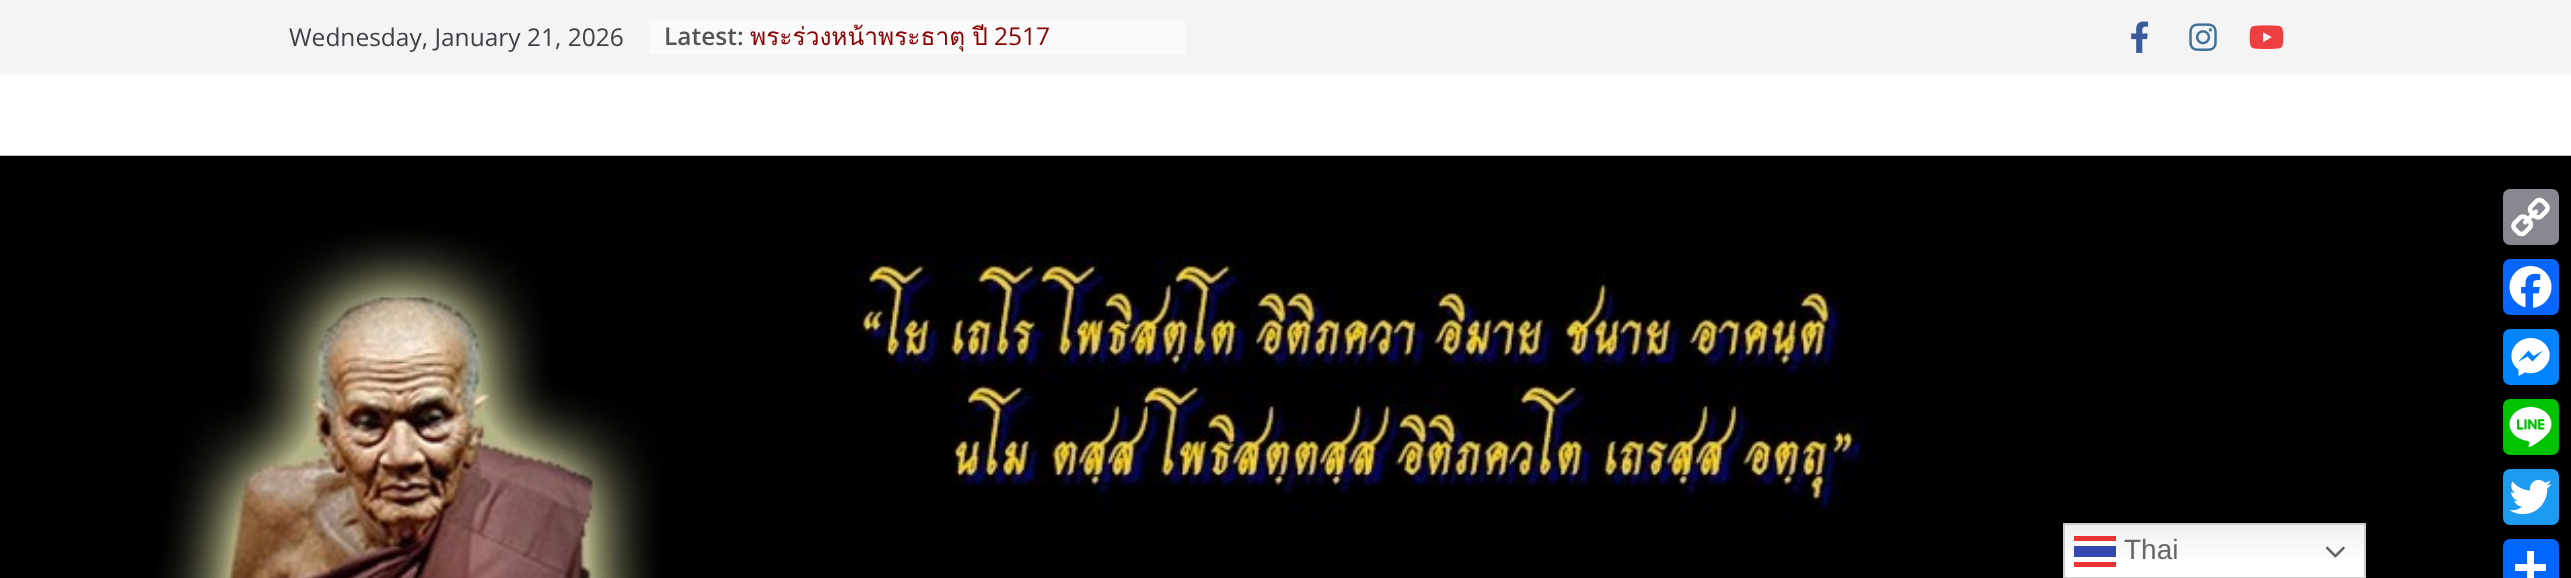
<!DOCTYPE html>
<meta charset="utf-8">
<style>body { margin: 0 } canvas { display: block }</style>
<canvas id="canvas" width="2571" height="578"></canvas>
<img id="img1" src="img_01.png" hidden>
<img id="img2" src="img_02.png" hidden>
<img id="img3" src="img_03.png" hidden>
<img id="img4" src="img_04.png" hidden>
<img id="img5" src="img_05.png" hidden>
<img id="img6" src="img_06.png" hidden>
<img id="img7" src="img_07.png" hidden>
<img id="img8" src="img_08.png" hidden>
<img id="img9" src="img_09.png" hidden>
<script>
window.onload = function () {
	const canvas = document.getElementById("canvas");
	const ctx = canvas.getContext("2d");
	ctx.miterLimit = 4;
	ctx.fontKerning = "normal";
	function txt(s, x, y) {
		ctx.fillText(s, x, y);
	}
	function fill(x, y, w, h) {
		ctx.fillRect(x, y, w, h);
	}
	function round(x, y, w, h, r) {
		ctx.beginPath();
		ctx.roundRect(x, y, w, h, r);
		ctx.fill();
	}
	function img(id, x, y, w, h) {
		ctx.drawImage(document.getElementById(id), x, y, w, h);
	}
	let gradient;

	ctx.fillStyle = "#FFFFFF";
	fill(0, 0, 2571, 578);
	ctx.fillStyle = "rgba(0, 0, 0, 0.1)";
	ctx.filter = "blur(2px)";
	ctx.beginPath();
	ctx.rect(0, 0, 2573, 72);
	ctx.fill();
	ctx.filter = "none";
	ctx.fillStyle = "#F4F4F5";
	fill(0, 0, 2571, 72);
	ctx.fillStyle = "#FAFAFA";
	fill(649, 19, 536, 35);
	img("img1", 2131, 21, 18, 32);
	img("img2", 2189, 23, 28, 28);
	img("img3", 2249, 25, 35, 24);
	img("img4", 0, 155, 2571, 423);
	gradient = ctx.createLinearGradient(2215, 523, 2215, 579);
	gradient.addColorStop(0, "#EFEFEF");
	gradient.addColorStop(0.7, "#FFFFFF");
	ctx.fillStyle = gradient;
	fill(2065, 525, 299, 52);
	ctx.strokeStyle = "#CCCCCC";
	ctx.lineWidth = 2;
	ctx.strokeRect(2064, 524, 301, 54);
	ctx.fillStyle = "rgba(255, 255, 255, 0.8)";
	fill(2074, 541, 42, 13);
	ctx.fillStyle = "#3348AE";
	fill(2074, 546, 42, 11);
	ctx.fillStyle = "#EC3333";
	ctx.beginPath();
	ctx.moveTo(2074, 536);
	ctx.lineTo(2116, 536);
	ctx.lineTo(2116, 541);
	ctx.lineTo(2074, 541);
	ctx.closePath();
	ctx.moveTo(2074, 562);
	ctx.lineTo(2116, 562);
	ctx.lineTo(2116, 567);
	ctx.lineTo(2074, 567);
	ctx.closePath();
	ctx.fill("evenodd");
	img("img5", 2326, 546, 19, 12);
	ctx.fillStyle = "#888990";
	round(2503, 189, 56, 56, 7);
	img("img6", 2511, 197, 39, 40);
	ctx.fillStyle = "#0866FF";
	round(2503, 259, 56, 56, 7);
	img("img7", 2509, 266, 43, 42);
	ctx.fillStyle = "#0084FF";
	round(2503, 329, 56, 56, 7);
	ctx.fillStyle = "#FFFFFF";
	ctx.beginPath();
	ctx.moveTo(2530.5, 338);
	ctx.bezierCurveTo(2513, 338, 2504.5, 359, 2518.5, 369.5);
	ctx.lineTo(2518.5, 376);
	ctx.lineTo(2525, 372.5);
	ctx.bezierCurveTo(2543, 377.5, 2558.5, 356.5, 2544, 343);
	ctx.bezierCurveTo(2540.5, 339.5, 2535.5, 338, 2530.5, 338);
	ctx.moveTo(2532.5, 361.5);
	ctx.lineTo(2527.5, 356.5);
	ctx.lineTo(2518, 362);
	ctx.lineTo(2528.5, 350.5);
	ctx.lineTo(2533.5, 356);
	ctx.lineTo(2543, 350.5);
	ctx.closePath();
	ctx.fill();
	ctx.fillStyle = "#00C300";
	round(2503, 399, 56, 56, 7);
	img("img8", 2509, 407, 43, 40);
	ctx.fillStyle = "#1D9BF0";
	round(2503, 469, 56, 56, 7);
	img("img9", 2509, 479, 43, 36);
	ctx.fillStyle = "#0166FF";
	round(2503, 539, 56, 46, 7);
	ctx.fillStyle = "#FFFFFF";
	fill(2527, 551, 7, 27);
	fill(2515, 564, 31, 7);
	ctx.font = "24.5px Open Sans";
	ctx.fillStyle = "#3F3F46";
	txt("Wednesday, January 21, 2026", 289, 46);
	ctx.font = "600 24.5px Open Sans";
	ctx.fillStyle = "#555555";
	txt("Latest:", 664, 45);
	ctx.wordSpacing = "-1px";
	ctx.font = "24.5px Loma";
	ctx.fillStyle = "#8B0000";
	txt("พระร่วงหน้าพระธาตุ ปี", 750, 45);
	ctx.wordSpacing = "0px";
	ctx.font = "24.5px Open Sans";
	txt("2517", 994, 45);
	ctx.font = "28px Liberation Sans";
	ctx.fillStyle = "#666666";
	txt("Thai", 2124, 559);
};
</script>
